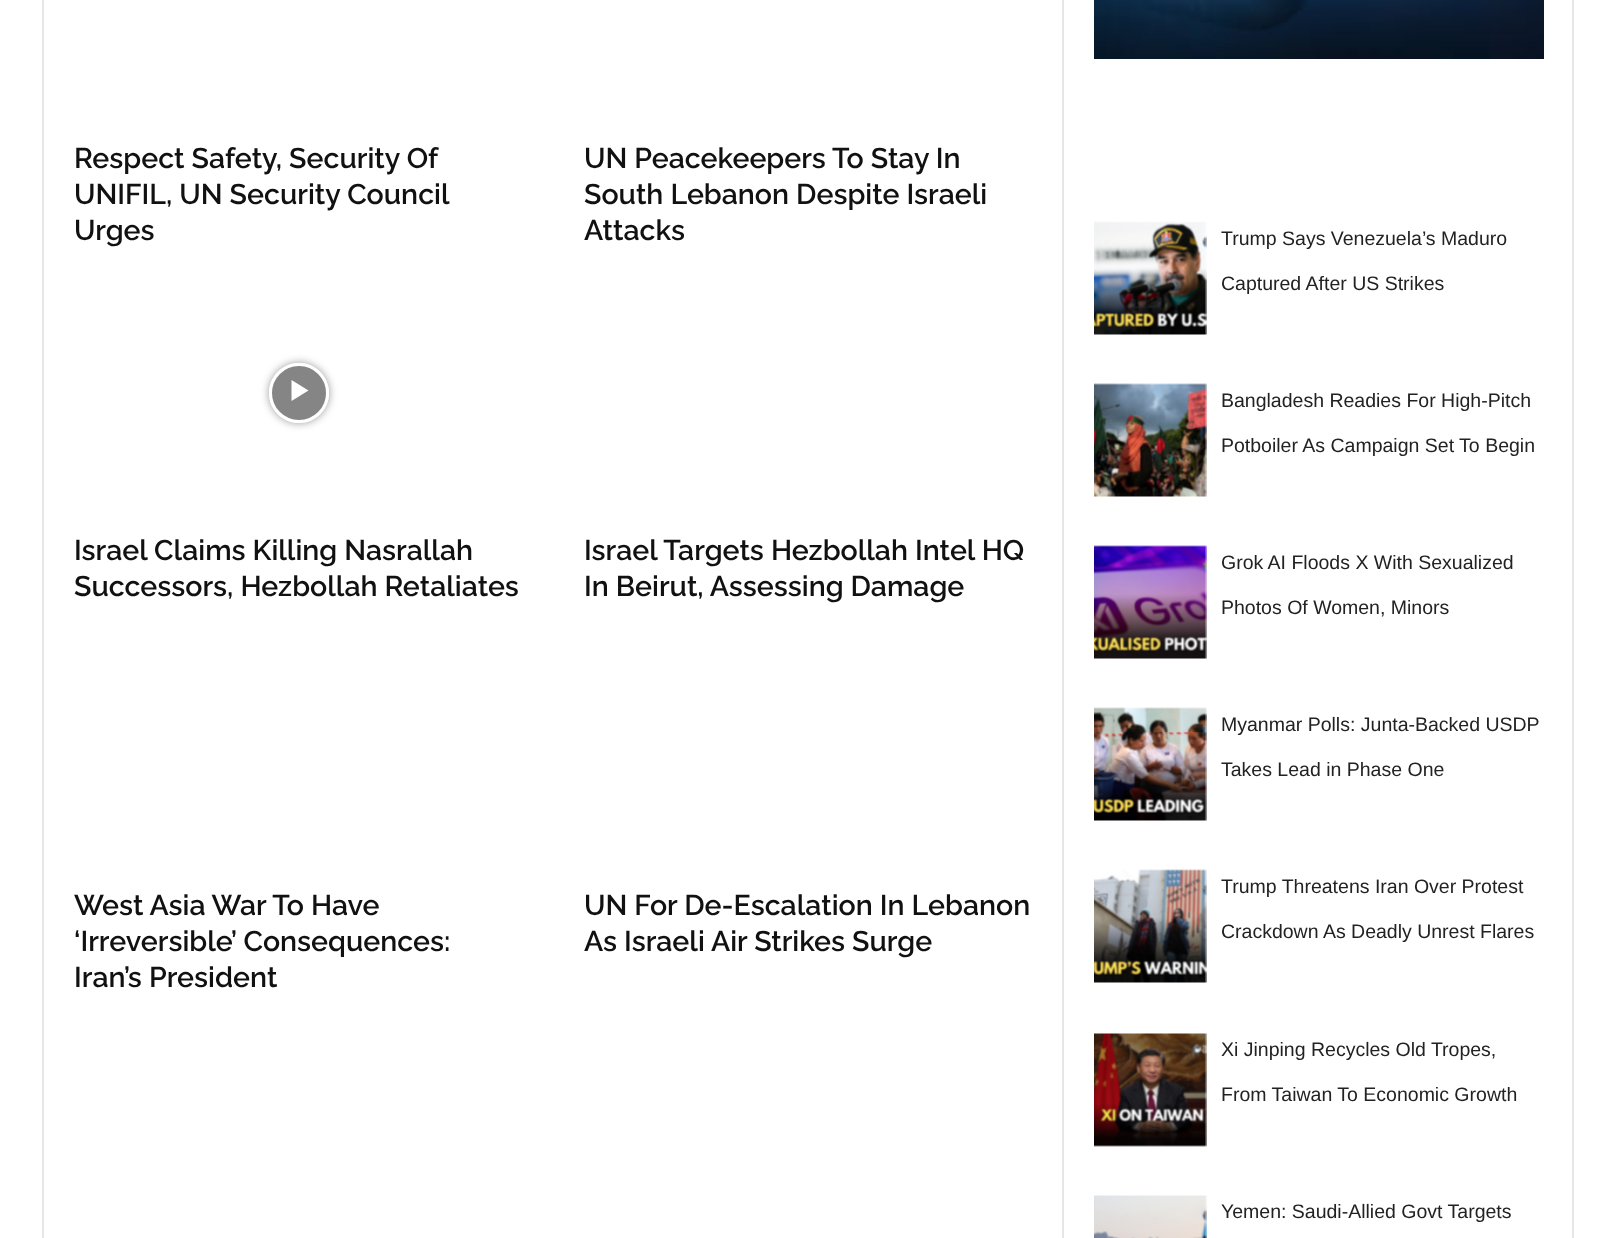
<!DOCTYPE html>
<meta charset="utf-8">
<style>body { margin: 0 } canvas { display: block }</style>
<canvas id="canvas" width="1615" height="1238"></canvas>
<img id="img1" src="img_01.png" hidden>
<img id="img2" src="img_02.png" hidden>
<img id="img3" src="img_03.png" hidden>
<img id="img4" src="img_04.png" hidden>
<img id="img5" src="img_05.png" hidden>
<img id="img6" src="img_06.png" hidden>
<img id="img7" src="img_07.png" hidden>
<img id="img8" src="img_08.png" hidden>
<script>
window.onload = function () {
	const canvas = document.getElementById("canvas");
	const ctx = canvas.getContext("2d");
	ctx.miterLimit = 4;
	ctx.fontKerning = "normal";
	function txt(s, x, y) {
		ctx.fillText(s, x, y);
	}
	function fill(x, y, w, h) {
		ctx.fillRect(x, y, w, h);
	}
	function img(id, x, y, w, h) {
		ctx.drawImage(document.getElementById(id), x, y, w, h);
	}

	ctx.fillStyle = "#FFFFFF";
	fill(0, 0, 1615, 1238);
	ctx.fillStyle = "#E6E6E6";
	fill(42, 0, 2, 1238);
	ctx.save();
	ctx.beginPath();
	ctx.moveTo(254, 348);
	ctx.lineTo(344, 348);
	ctx.lineTo(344, 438);
	ctx.lineTo(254, 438);
	ctx.closePath();
	ctx.moveTo(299, 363);
	ctx.bezierCurveTo(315.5, 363, 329, 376.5, 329, 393);
	ctx.bezierCurveTo(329, 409.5, 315.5, 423, 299, 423);
	ctx.bezierCurveTo(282.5, 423, 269, 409.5, 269, 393);
	ctx.bezierCurveTo(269, 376.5, 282.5, 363, 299, 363);
	ctx.closePath();
	ctx.clip("evenodd");
	ctx.fillStyle = "rgba(0, 0, 0, 0.4)";
	ctx.filter = "blur(4.5px)";
	ctx.beginPath();
	ctx.roundRect(269, 363, 60, 60, 30);
	ctx.fill();
	ctx.filter = "none";
	ctx.restore();
	ctx.fillStyle = "rgba(0, 0, 0, 0.48)";
	ctx.beginPath();
	ctx.arc(299, 393, 28.5, 0, Math.PI * 2);
	ctx.fill();
	ctx.strokeStyle = "#FFFFFF";
	ctx.lineWidth = 3;
	ctx.stroke();
	ctx.fillStyle = "#FFFFFF";
	ctx.beginPath();
	ctx.moveTo(291.5, 380);
	ctx.lineTo(291.5, 401);
	ctx.lineTo(308.5, 390.5);
	ctx.closePath();
	ctx.fill();
	ctx.fillStyle = "#E6E6E6";
	fill(1062, 0, 2, 1238);
	img("img1", 1094, 0, 450, 59);
	img("img2", 1094, 221, 113, 114);
	img("img3", 1094, 383, 113, 114);
	img("img4", 1094, 545, 113, 114);
	img("img5", 1094, 707, 113, 114);
	img("img6", 1094, 869, 113, 114);
	img("img7", 1094, 1033, 113, 114);
	img("img8", 1094, 1195, 113, 43);
	fill(1572, 0, 2, 1238);
	ctx.font = "600 28.5px Raleway";
	ctx.fillStyle = "#111111";
	txt("Respect Safety, Security Of", 74, 168);
	txt("UNIFIL, UN Security Council", 74, 204);
	txt("Urges", 74, 240);
	txt("UN Peacekeepers To Stay In", 584, 168);
	txt("South Lebanon Despite Israeli", 584, 204);
	txt("Attacks", 584, 240);
	txt("Israel Claims Killing Nasrallah", 74, 560);
	txt("Successors, Hezbollah Retaliates", 74, 596);
	txt("Israel Targets Hezbollah Intel HQ", 584, 560);
	txt("In Beirut, Assessing Damage", 584, 596);
	txt("West Asia War To Have", 74, 915);
	txt("‘Irreversible’ Consequences:", 74, 951);
	txt("Iran’s President", 74, 987);
	txt("UN For De-Escalation In Lebanon", 584, 915);
	txt("As Israeli Air Strikes Surge", 584, 951);
	ctx.font = "19.5px Liberation Sans";
	ctx.fillStyle = "#222222";
	txt("Trump Says Venezuela’s Maduro", 1221, 245);
	txt("Captured After US Strikes", 1221, 290);
	txt("Bangladesh Readies For High-Pitch", 1221, 407);
	txt("Potboiler As Campaign Set To Begin", 1221, 452);
	txt("Grok AI Floods X With Sexualized", 1221, 569);
	txt("Photos Of Women, Minors", 1221, 614);
	txt("Myanmar Polls: Junta-Backed USDP", 1221, 731);
	txt("Takes Lead in Phase One", 1221, 776);
	txt("Trump Threatens Iran Over Protest", 1221, 893);
	txt("Crackdown As Deadly Unrest Flares", 1221, 938);
	txt("Xi Jinping Recycles Old Tropes,", 1221, 1056);
	txt("From Taiwan To Economic Growth", 1221, 1101);
	txt("Yemen: Saudi-Allied Govt Targets", 1221, 1218);
};
</script>
